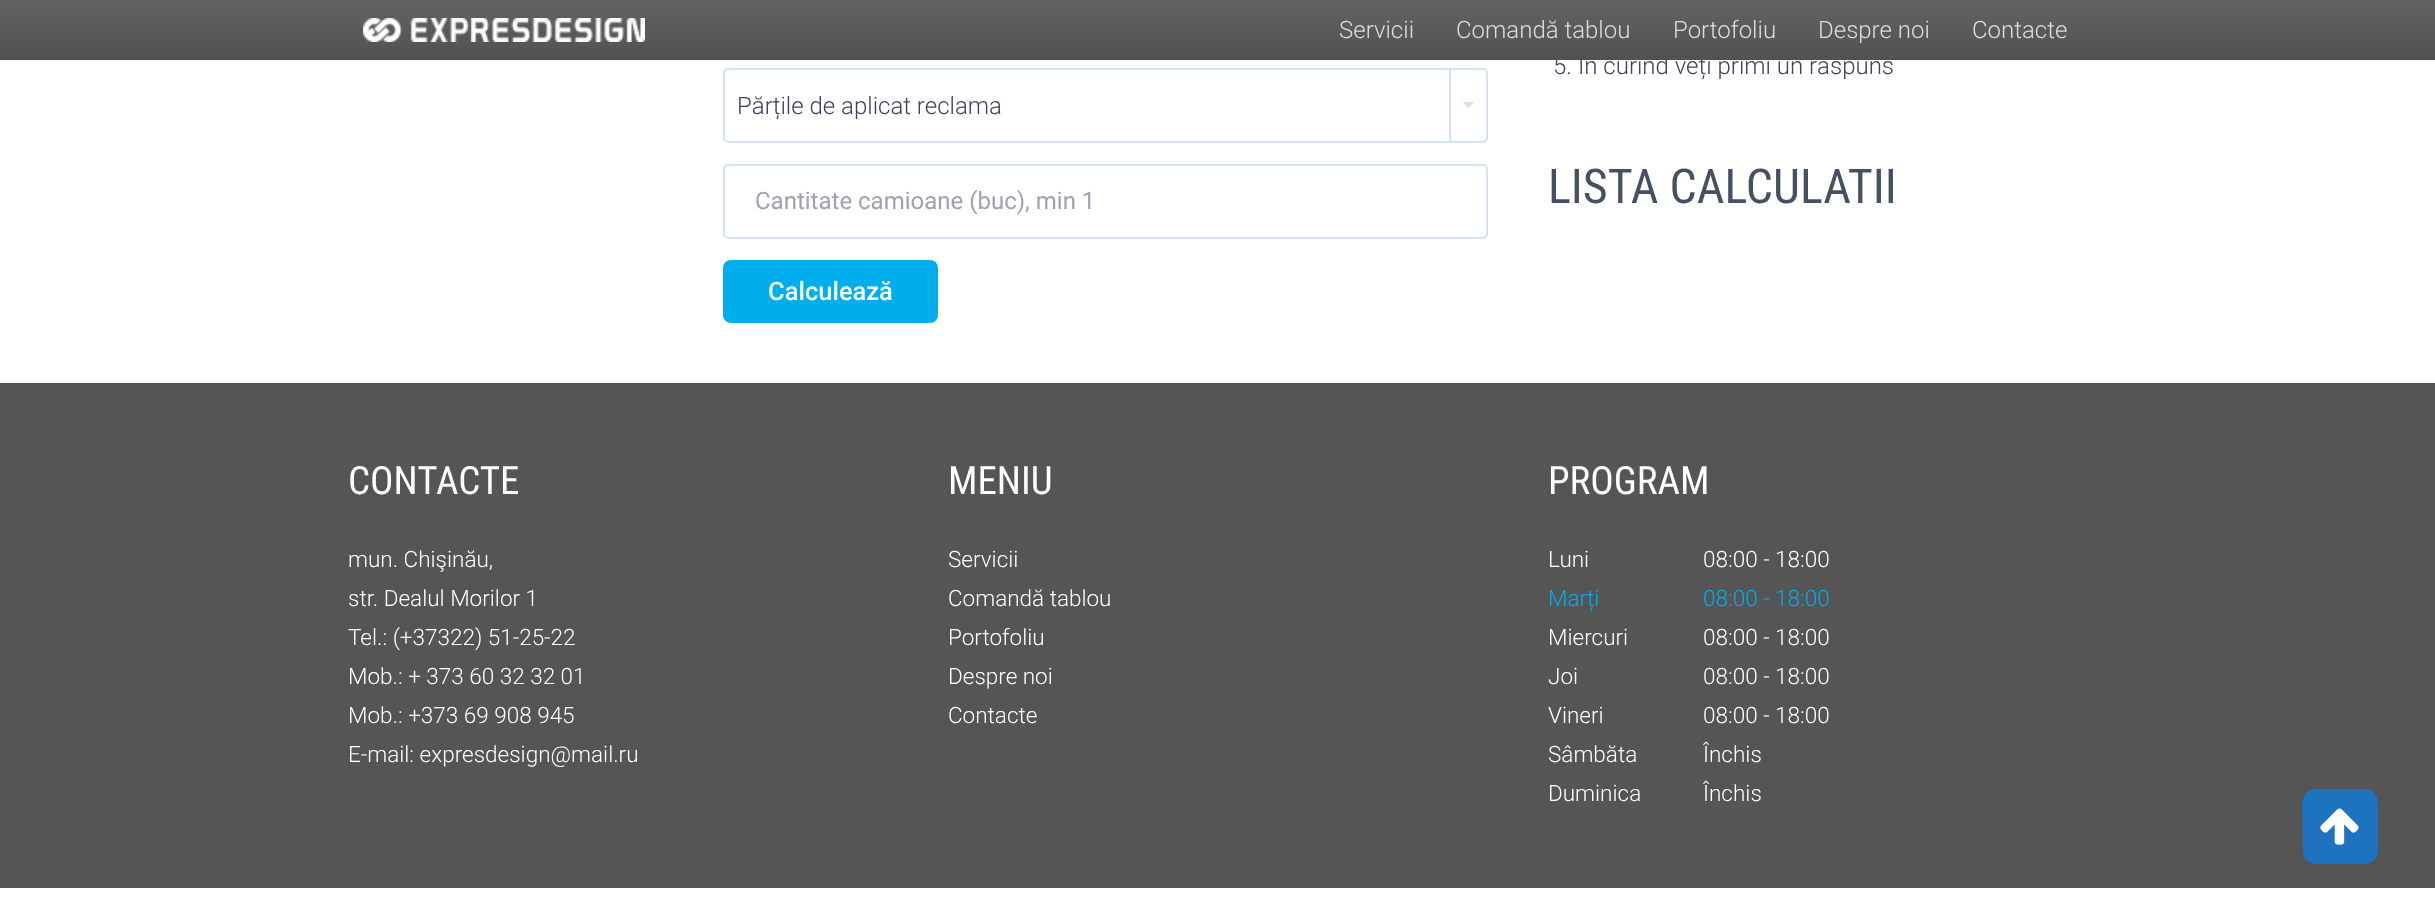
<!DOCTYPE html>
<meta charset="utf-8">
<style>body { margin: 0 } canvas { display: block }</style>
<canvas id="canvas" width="2435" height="908"></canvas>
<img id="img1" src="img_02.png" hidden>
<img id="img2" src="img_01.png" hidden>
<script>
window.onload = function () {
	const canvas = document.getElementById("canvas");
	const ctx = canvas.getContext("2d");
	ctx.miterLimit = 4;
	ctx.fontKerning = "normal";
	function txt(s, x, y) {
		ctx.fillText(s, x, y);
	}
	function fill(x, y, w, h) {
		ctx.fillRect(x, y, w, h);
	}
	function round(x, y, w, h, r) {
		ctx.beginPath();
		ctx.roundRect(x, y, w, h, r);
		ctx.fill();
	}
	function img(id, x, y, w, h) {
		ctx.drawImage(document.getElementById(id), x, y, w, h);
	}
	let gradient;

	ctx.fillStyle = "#FFFFFF";
	fill(0, 0, 2435, 908);
	ctx.beginPath();
	ctx.roundRect(724, 69, 763, 73, 4);
	ctx.strokeStyle = "#D4E1F0";
	ctx.lineWidth = 2;
	ctx.stroke();
	ctx.fillStyle = "#D4E1F0";
	fill(1449, 69, 2, 72);
	ctx.beginPath();
	ctx.moveTo(1462.5, 102);
	ctx.lineTo(1474.5, 102);
	ctx.lineTo(1468.5, 108);
	ctx.closePath();
	ctx.fill();
	ctx.beginPath();
	ctx.roundRect(724, 165, 763, 73, 4);
	ctx.stroke();
	ctx.fillStyle = "#00AEED";
	round(723, 260, 215, 63, 8);
	ctx.fillStyle = "#555555";
	fill(0, 383, 2435, 505);
	ctx.fillStyle = "#1E73BE";
	ctx.beginPath();
	ctx.moveTo(2378, 803);
	ctx.lineTo(2378, 853);
	ctx.bezierCurveTo(2375, 865, 2365, 864, 2356, 864);
	ctx.lineTo(2325, 864);
	ctx.bezierCurveTo(2315, 864, 2305, 865, 2303, 853);
	ctx.lineTo(2302, 803);
	ctx.bezierCurveTo(2303, 796, 2307, 790, 2314, 789);
	ctx.lineTo(2367, 789);
	ctx.bezierCurveTo(2373, 790, 2378, 796, 2378, 803);
	ctx.closePath();
	ctx.fill();
	img("img1", 2320, 808, 39, 37);
	ctx.font = "300 24px Roboto";
	ctx.fillStyle = "#3F4161";
	txt("Părțile de aplicat reclama", 737, 114);
	ctx.font = "24px Roboto";
	ctx.fillStyle = "#9FA0B0";
	txt("Cantitate camioane (buc), min 1", 755, 209);
	ctx.font = "500 25.5px Roboto";
	ctx.fillStyle = "#FFFFFF";
	txt("Calculează", 768, 300);
	ctx.font = "300 24px Roboto";
	ctx.fillStyle = "#3F4161";
	txt("5. În curînd veți primi un răspuns", 1553, 74);
	gradient = ctx.createLinearGradient(1218, 0, 1218, 60);
	gradient.addColorStop(0, "#636363");
	gradient.addColorStop(1, "#515151");
	ctx.fillStyle = gradient;
	fill(0, 0, 2435, 60);
	ctx.fillStyle = "#DDDDDD";
	txt("Contacte", 1972, 38);
	txt("Despre noi", 1818, 38);
	txt("Portofoliu", 1673, 38);
	txt("Comandă tablou", 1456, 38);
	txt("Servicii", 1339, 38);
	img("img2", 363, 18, 282, 24);
	ctx.font = "48px Roboto Condensed";
	ctx.fillStyle = "#465064";
	txt("LISTA CALCULATII", 1548, 203);
	ctx.font = "39px Roboto Condensed";
	ctx.fillStyle = "#FFFFFF";
	txt("CONTACTE", 348, 494);
	ctx.font = "300 22.5px Roboto";
	txt("mun. Chişinău,", 348, 567);
	txt("str. Dealul Morilor 1", 348, 606);
	txt("Tel.: (+37322) 51-25-22", 348, 645);
	txt("Mob.: + 373 60 32 32 01", 348, 684);
	txt("Mob.: +373 69 908 945", 348, 723);
	txt("E-mail: expresdesign@mail.ru", 348, 762);
	ctx.font = "39px Roboto Condensed";
	txt("MENIU", 948, 494);
	ctx.font = "300 22.5px Roboto";
	txt("Servicii", 948, 567);
	txt("Comandă tablou", 948, 606);
	txt("Portofoliu", 948, 645);
	txt("Despre noi", 948, 684);
	txt("Contacte", 948, 723);
	ctx.font = "39px Roboto Condensed";
	txt("PROGRAM", 1548, 494);
	ctx.font = "300 22.5px Roboto";
	txt("Luni", 1548, 567);
	txt("08:00 - 18:00", 1703, 567);
	ctx.fillStyle = "#00AEED";
	txt("Marți", 1548, 606);
	txt("08:00 - 18:00", 1703, 606);
	ctx.fillStyle = "#FFFFFF";
	txt("Miercuri", 1548, 645);
	txt("08:00 - 18:00", 1703, 645);
	txt("Joi", 1548, 684);
	txt("08:00 - 18:00", 1703, 684);
	txt("Vineri", 1548, 723);
	txt("08:00 - 18:00", 1703, 723);
	txt("Sâmbăta", 1548, 762);
	txt("Închis", 1703, 762);
	txt("Duminica", 1548, 801);
	txt("Închis", 1703, 801);
};
</script>
